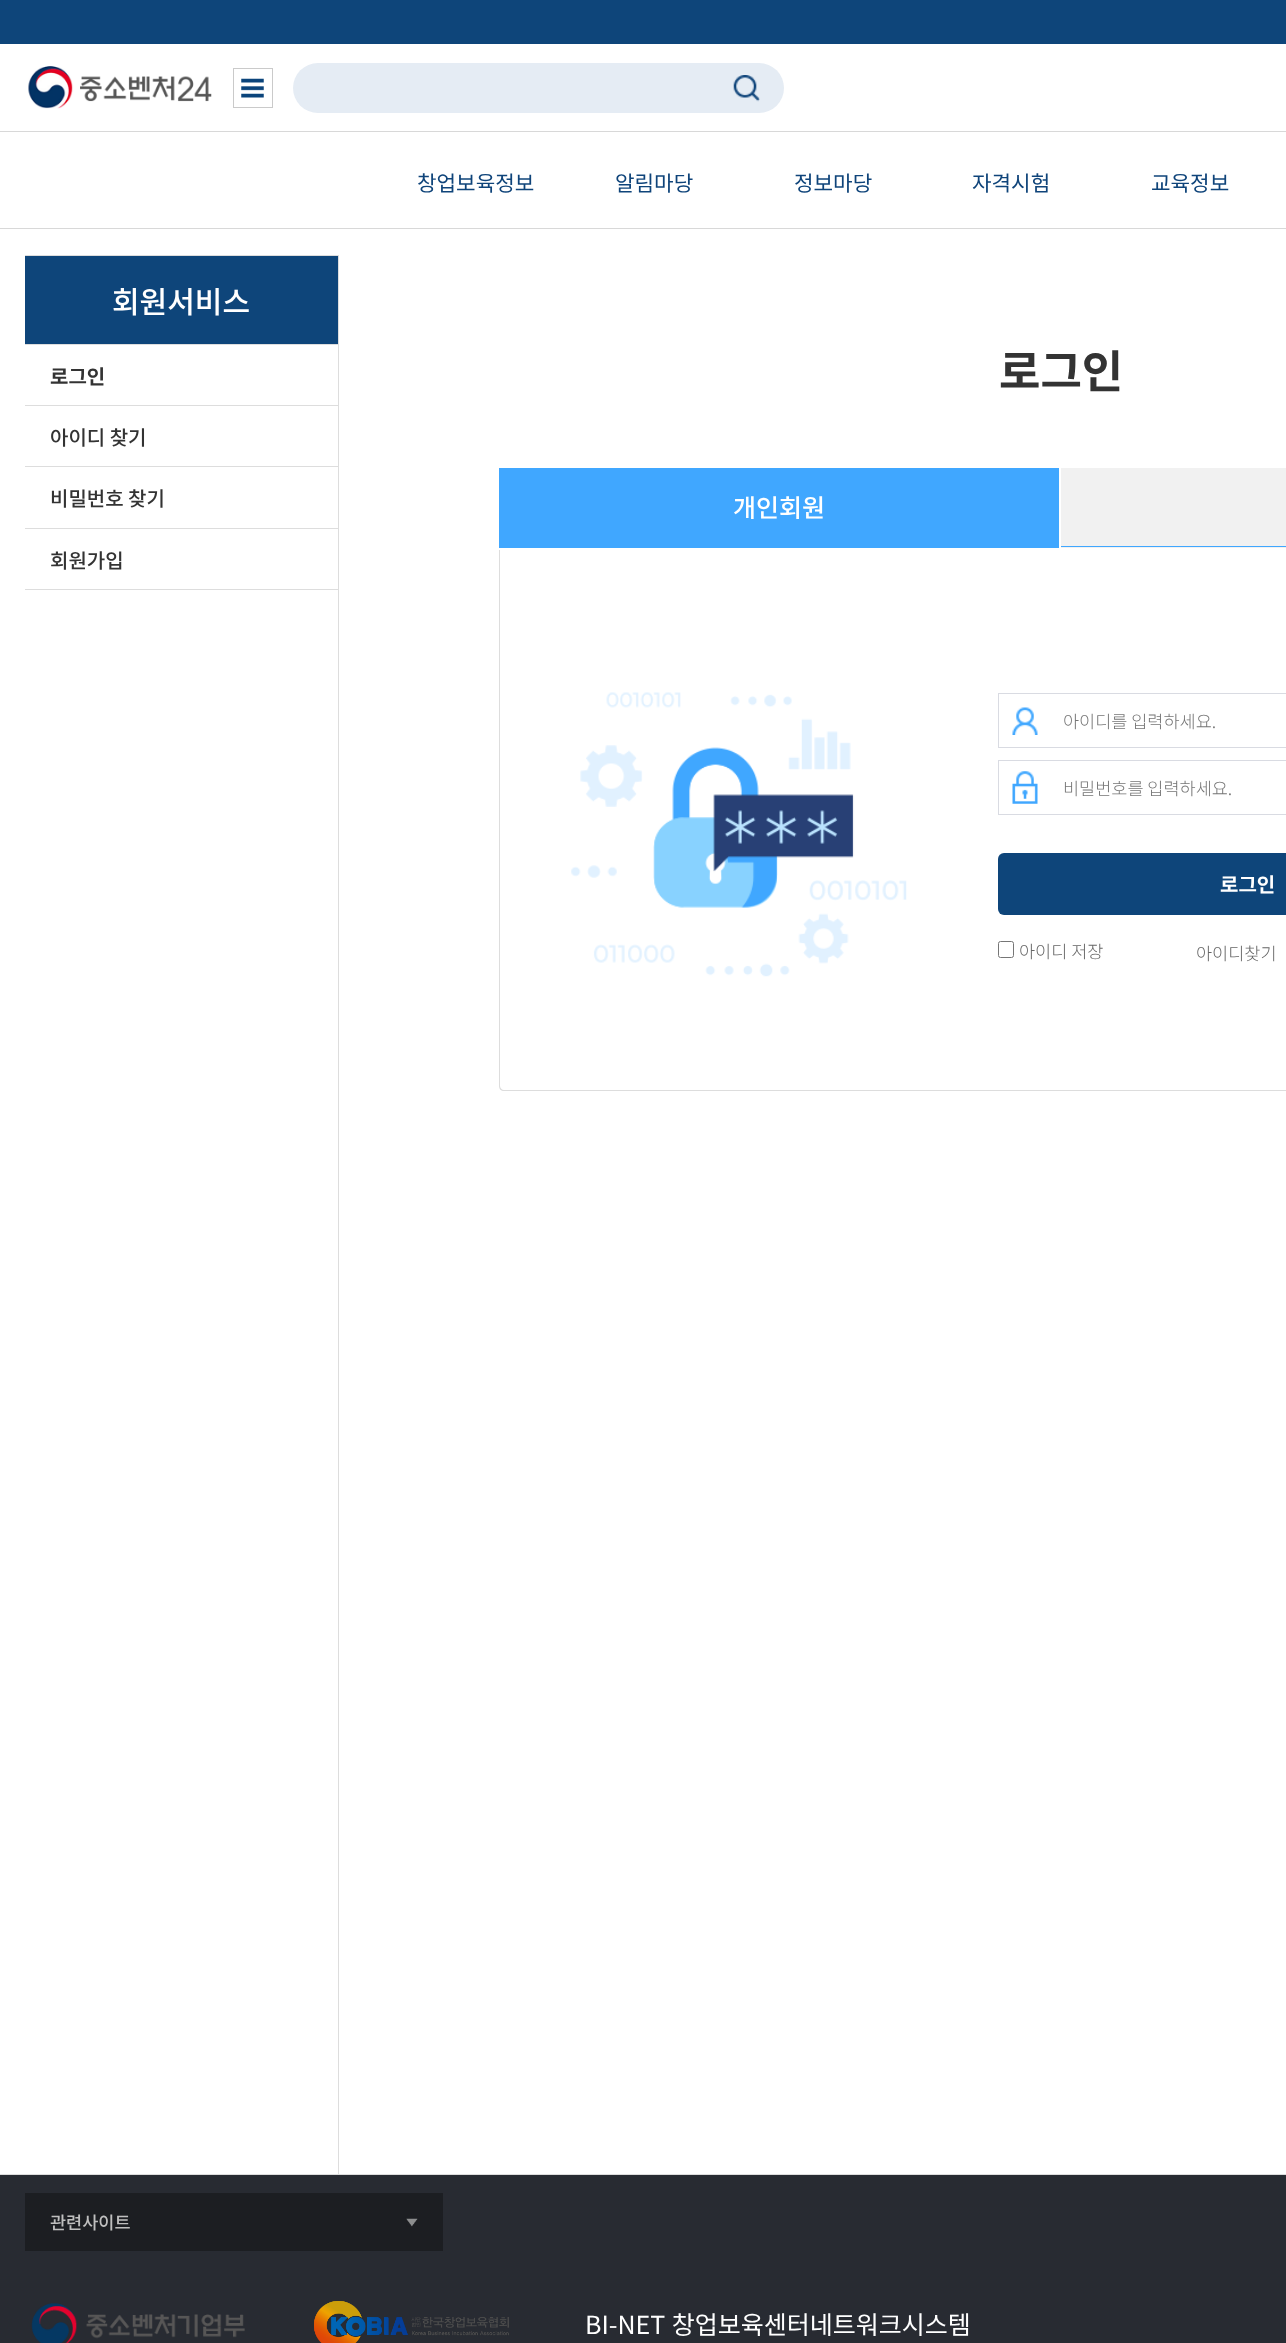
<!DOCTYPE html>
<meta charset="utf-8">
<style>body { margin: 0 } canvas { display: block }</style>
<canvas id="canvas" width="1286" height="2343"></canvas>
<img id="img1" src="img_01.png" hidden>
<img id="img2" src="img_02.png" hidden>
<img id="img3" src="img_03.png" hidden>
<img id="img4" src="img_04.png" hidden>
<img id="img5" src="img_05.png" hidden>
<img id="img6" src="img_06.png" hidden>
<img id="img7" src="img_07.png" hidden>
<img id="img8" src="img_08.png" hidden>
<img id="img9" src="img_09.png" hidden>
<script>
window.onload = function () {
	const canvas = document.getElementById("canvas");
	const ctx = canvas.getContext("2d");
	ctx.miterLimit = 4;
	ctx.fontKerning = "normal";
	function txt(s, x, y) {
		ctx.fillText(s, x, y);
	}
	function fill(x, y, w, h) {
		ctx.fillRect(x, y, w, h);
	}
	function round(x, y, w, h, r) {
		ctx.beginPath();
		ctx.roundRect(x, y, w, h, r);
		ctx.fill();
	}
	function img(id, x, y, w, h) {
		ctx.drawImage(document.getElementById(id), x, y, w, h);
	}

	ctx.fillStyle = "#FFFFFF";
	fill(0, 0, 1286, 2343);
	ctx.fillStyle = "#D8D8D8";
	fill(0, 131, 1286, 1);
	ctx.fillStyle = "#0E457A";
	fill(0, 0, 1286, 44);
	img("img1", 28, 66, 184, 43);
	img("img2", 241, 78, 23, 20);
	ctx.strokeStyle = "#CACACA";
	ctx.strokeRect(233.5, 68.5, 39, 39);
	ctx.fillStyle = "#E5ECF4";
	round(293, 63, 491, 50, 25);
	img("img3", 733, 75, 27, 27);
	ctx.fillStyle = "#D8D8D8";
	fill(0, 228, 1286, 1);
	ctx.fillStyle = "#DDDDDD";
	fill(25, 255, 313, 1);
	ctx.fillStyle = "#0E457A";
	fill(25, 256, 313, 88);
	ctx.fillStyle = "#DDDDDD";
	fill(25, 344, 313, 1);
	fill(25, 405, 313, 1);
	fill(25, 466, 313, 1);
	fill(25, 528, 313, 1);
	fill(25, 589, 313, 1);
	fill(338, 255, 1, 1919);
	ctx.fillStyle = "#40A7FF";
	fill(499, 468, 560, 80);
	ctx.fillStyle = "#F1F1F1";
	fill(1061, 468, 225, 80);
	ctx.fillStyle = "#40A7FF";
	fill(1061, 546, 225, 1);
	img("img4", 571, 692, 336, 285);
	ctx.fillStyle = "#DDDDDD";
	ctx.beginPath();
	ctx.moveTo(499, 550);
	ctx.lineTo(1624, 550);
	ctx.lineTo(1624, 1086);
	ctx.bezierCurveTo(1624, 1089, 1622, 1091, 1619, 1091);
	ctx.lineTo(504, 1091);
	ctx.bezierCurveTo(501, 1091, 499, 1089, 499, 1086);
	ctx.closePath();
	ctx.moveTo(500, 550);
	ctx.lineTo(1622, 550);
	ctx.lineTo(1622, 1086);
	ctx.bezierCurveTo(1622, 1088, 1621, 1090, 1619, 1090);
	ctx.lineTo(504, 1090);
	ctx.bezierCurveTo(502, 1090, 500, 1088, 500, 1086);
	ctx.closePath();
	ctx.fill("evenodd");
	ctx.strokeStyle = "#D9DBE2";
	ctx.strokeRect(998.5, 693.5, 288, 54);
	img("img5", 1012, 707, 26, 28);
	ctx.strokeRect(998.5, 760.5, 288, 54);
	img("img6", 1012, 771, 26, 33);
	ctx.fillStyle = "#0E457A";
	round(998, 853, 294, 62, 6);
	ctx.beginPath();
	ctx.roundRect(998.5, 941.5, 15, 16, 2);
	ctx.strokeStyle = "#767676";
	ctx.stroke();
	ctx.fillStyle = "#282B32";
	fill(0, 2175, 1286, 168);
	ctx.fillStyle = "#DDDDDD";
	fill(0, 2174, 1286, 1);
	ctx.fillStyle = "#1C1E22";
	fill(25, 2193, 418, 58);
	img("img7", 406, 2218, 12, 9);
	img("img8", 31, 2303, 214, 40);
	img("img9", 314, 2301, 195, 42);
	ctx.font = "21.25px Noto Sans KR";
	ctx.fillStyle = "#0F447A";
	txt("창업보육정보", 417, 191);
	txt("알림마당", 615, 191);
	txt("정보마당", 794, 191);
	txt("자격시험", 972, 191);
	txt("교육정보", 1151, 191);
	ctx.font = "500 30px Noto Sans KR";
	ctx.fillStyle = "#FFFFFF";
	txt("회원서비스", 112, 313);
	ctx.font = "bold 20px Noto Sans KR";
	ctx.fillStyle = "#333333";
	txt("로그인", 50, 384);
	ctx.font = "500 20px Noto Sans KR";
	txt("아이디 찾기", 50, 445);
	txt("비밀번호 찾기", 50, 506);
	txt("회원가입", 50, 568);
	ctx.font = "bold 45px Noto Sans KR";
	txt("로그인", 999, 388);
	ctx.font = "500 25px Noto Sans KR";
	ctx.fillStyle = "#FFFFFF";
	txt("개인회원", 733, 517);
	ctx.font = "300 17.5px Noto Sans KR";
	ctx.fillStyle = "#757575";
	txt("아이디를 입력하세요.", 1063, 728);
	txt("비밀번호를 입력하세요.", 1063, 795);
	ctx.font = "bold 20px Noto Sans KR";
	ctx.fillStyle = "#FFFFFF";
	txt("로그인", 1220, 892);
	ctx.font = "300 17.5px Noto Sans KR";
	ctx.fillStyle = "#666666";
	txt("아이디 저장", 1019, 958);
	txt("아이디찾기", 1196, 960);
	ctx.font = "500 17.5px Noto Sans KR";
	ctx.fillStyle = "#BFBFBF";
	txt("관련사이트", 50, 2229);
	ctx.wordSpacing = "1px";
	ctx.font = "25px Noto Sans KR";
	ctx.fillStyle = "#FFFFFF";
	txt("BI-NET 창업보육센터네트워크시스템", 585, 2334);
};
</script>
